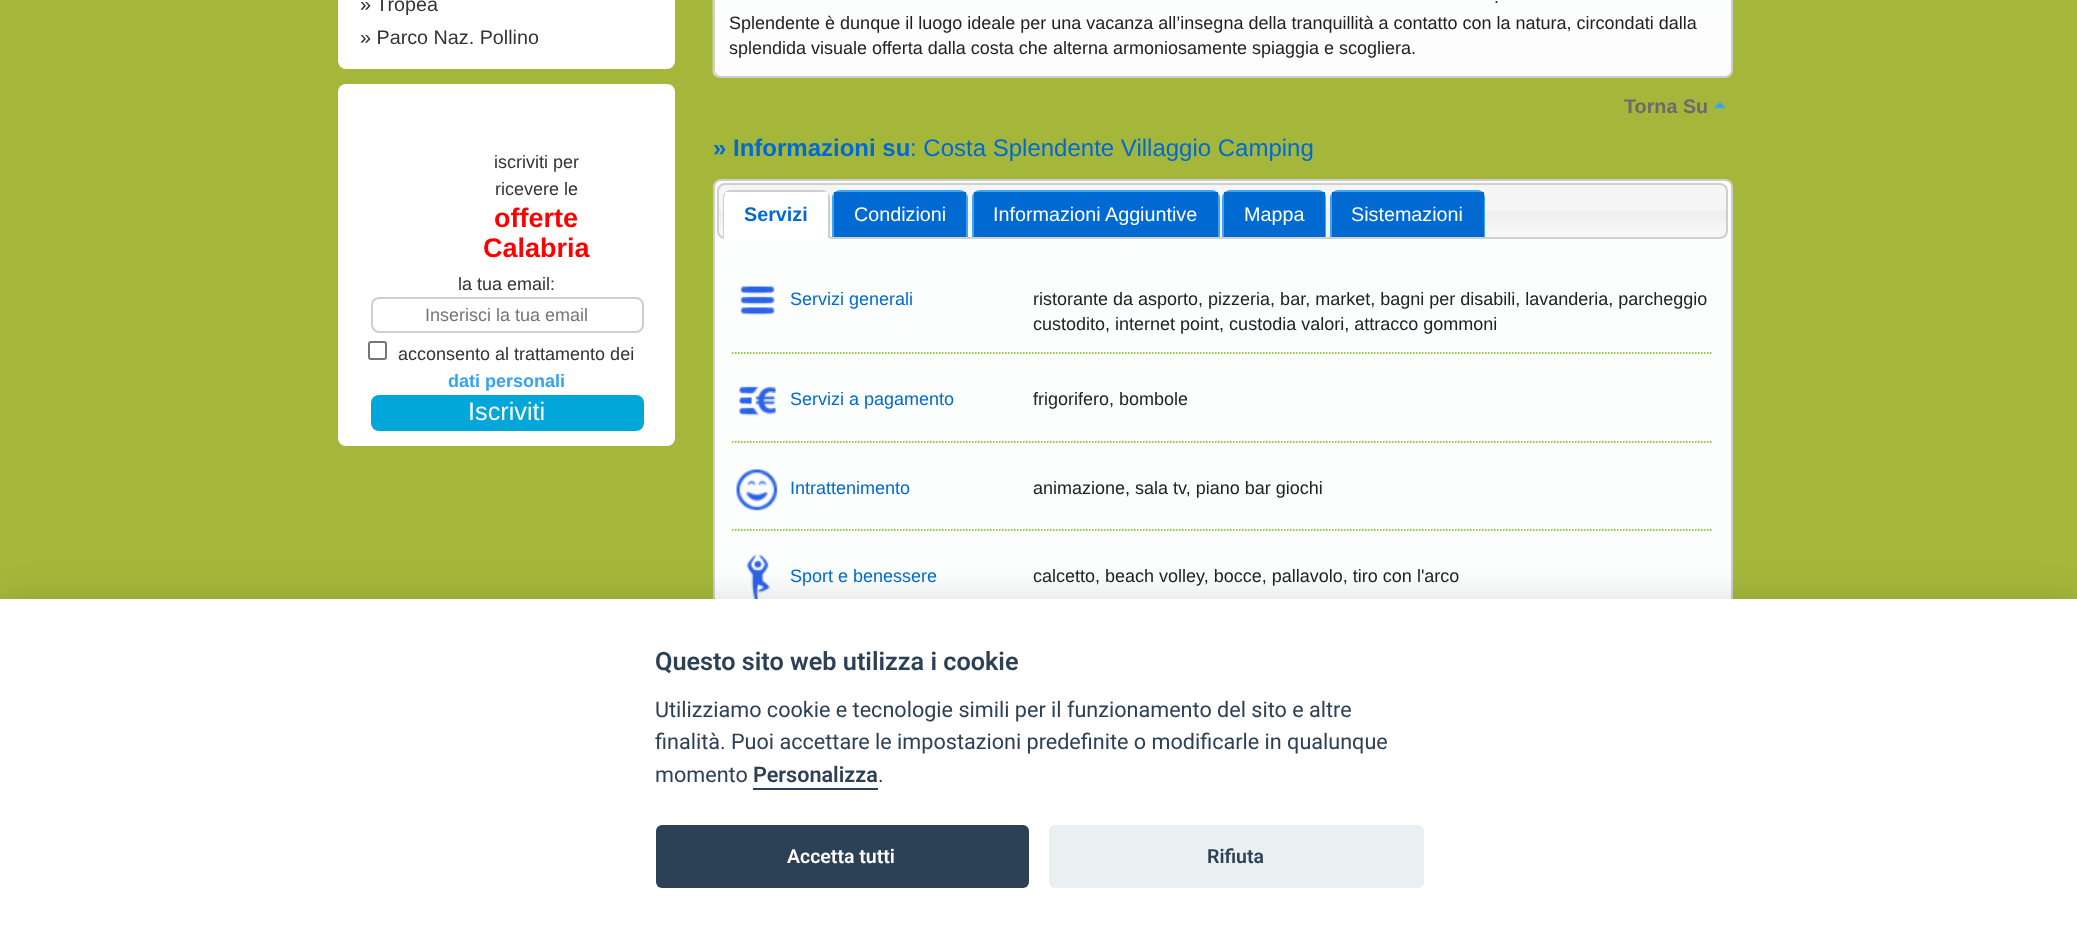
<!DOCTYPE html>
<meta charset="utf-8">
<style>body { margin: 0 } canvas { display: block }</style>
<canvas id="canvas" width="2077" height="936"></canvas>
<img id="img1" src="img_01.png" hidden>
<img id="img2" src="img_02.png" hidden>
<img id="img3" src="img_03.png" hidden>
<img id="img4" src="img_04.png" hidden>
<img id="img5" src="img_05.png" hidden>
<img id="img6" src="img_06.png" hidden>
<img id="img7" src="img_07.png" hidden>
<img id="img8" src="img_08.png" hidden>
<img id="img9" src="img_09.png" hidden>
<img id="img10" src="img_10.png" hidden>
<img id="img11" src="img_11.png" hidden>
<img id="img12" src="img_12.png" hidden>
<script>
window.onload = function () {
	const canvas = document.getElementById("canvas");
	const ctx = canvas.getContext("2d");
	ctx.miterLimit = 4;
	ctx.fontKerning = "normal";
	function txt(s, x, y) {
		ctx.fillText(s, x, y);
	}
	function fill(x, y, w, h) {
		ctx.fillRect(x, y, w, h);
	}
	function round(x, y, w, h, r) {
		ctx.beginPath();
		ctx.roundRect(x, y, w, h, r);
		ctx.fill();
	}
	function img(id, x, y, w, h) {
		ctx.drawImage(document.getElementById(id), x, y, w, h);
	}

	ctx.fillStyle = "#A5B73B";
	fill(0, 0, 2077, 936);
	ctx.fillStyle = "#FFFFFF";
	round(338, -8, 337, 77, 8);
	round(338, 84, 337, 362, 8);
	ctx.beginPath();
	ctx.roundRect(372, 298, 271, 34, 7);
	ctx.strokeStyle = "#CECECE";
	ctx.lineWidth = 2;
	ctx.stroke();
	ctx.beginPath();
	ctx.roundRect(369, 342, 17, 17, 2);
	ctx.strokeStyle = "#767676";
	ctx.stroke();
	ctx.fillStyle = "#00A7D8";
	round(371, 395, 273, 36, 8);
	img("img1", 712, 0, 1021, 77);
	ctx.beginPath();
	ctx.roundRect(714, -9, 1018, 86, 7);
	ctx.strokeStyle = "#CECECE";
	ctx.stroke();
	img("img2", 1714, 101, 12, 8);
	ctx.fillStyle = "#FCFDFD";
	ctx.beginPath();
	ctx.roundRect(714, 180, 1018, 652, 7);
	ctx.fill();
	ctx.stroke();
	img("img3", 717, 183, 1011, 55);
	ctx.beginPath();
	ctx.roundRect(718, 184, 1009, 54, 7);
	ctx.strokeStyle = "#CFCFCF";
	ctx.stroke();
	ctx.fillStyle = "#FFFFFF";
	ctx.beginPath();
	ctx.roundRect(723, 191, 107, 48, [8, 8, 0, 0]);
	ctx.fill();
	img("img4", 726, 191, 100, 1);
	ctx.fillStyle = "#CECECE";
	ctx.beginPath();
	ctx.moveTo(730, 190);
	ctx.lineTo(822, 190);
	ctx.bezierCurveTo(826, 190, 830, 194, 830, 198);
	ctx.lineTo(830, 238);
	ctx.lineTo(723, 238);
	ctx.lineTo(723, 198);
	ctx.bezierCurveTo(723, 194, 726, 190, 730, 190);
	ctx.closePath();
	ctx.moveTo(730, 192);
	ctx.lineTo(822, 192);
	ctx.bezierCurveTo(825, 192, 828, 195, 828, 198);
	ctx.lineTo(828, 238);
	ctx.lineTo(724, 238);
	ctx.lineTo(724, 198);
	ctx.bezierCurveTo(724, 195, 727, 192, 730, 192);
	ctx.closePath();
	ctx.fill("evenodd");
	ctx.fillStyle = "#FFFFFF";
	fill(725, 192, 103, 6);
	img("img5", 832, 190, 136, 8);
	ctx.fillStyle = "#3EA5F4";
	ctx.beginPath();
	ctx.moveTo(840, 190);
	ctx.lineTo(960, 190);
	ctx.bezierCurveTo(964, 190, 968, 194, 968, 198);
	ctx.lineTo(968, 237);
	ctx.lineTo(832, 237);
	ctx.lineTo(832, 198);
	ctx.bezierCurveTo(832, 194, 836, 190, 840, 190);
	ctx.closePath();
	ctx.moveTo(840, 192);
	ctx.lineTo(960, 192);
	ctx.bezierCurveTo(963, 192, 966, 195, 966, 198);
	ctx.lineTo(966, 237);
	ctx.lineTo(834, 237);
	ctx.lineTo(834, 198);
	ctx.bezierCurveTo(834, 195, 837, 192, 840, 192);
	ctx.closePath();
	ctx.fill("evenodd");
	ctx.fillStyle = "#006AD3";
	fill(834, 192, 132, 45);
	img("img6", 972, 190, 248, 8);
	ctx.fillStyle = "#3EA5F4";
	ctx.beginPath();
	ctx.moveTo(980, 190);
	ctx.lineTo(1212, 190);
	ctx.bezierCurveTo(1216, 190, 1220, 194, 1220, 198);
	ctx.lineTo(1220, 237);
	ctx.lineTo(972, 237);
	ctx.lineTo(972, 198);
	ctx.bezierCurveTo(972, 194, 975, 190, 980, 190);
	ctx.closePath();
	ctx.moveTo(980, 192);
	ctx.lineTo(1212, 192);
	ctx.bezierCurveTo(1215, 192, 1218, 195, 1218, 198);
	ctx.lineTo(1218, 237);
	ctx.lineTo(974, 237);
	ctx.lineTo(974, 198);
	ctx.bezierCurveTo(974, 195, 976, 192, 980, 192);
	ctx.closePath();
	ctx.fill("evenodd");
	ctx.fillStyle = "#006AD3";
	fill(974, 192, 244, 45);
	img("img7", 1222, 190, 104, 8);
	ctx.fillStyle = "#3EA5F4";
	ctx.beginPath();
	ctx.moveTo(1230, 190);
	ctx.lineTo(1318, 190);
	ctx.bezierCurveTo(1323, 190, 1326, 194, 1326, 198);
	ctx.lineTo(1326, 237);
	ctx.lineTo(1222, 237);
	ctx.lineTo(1222, 198);
	ctx.bezierCurveTo(1222, 194, 1226, 190, 1230, 190);
	ctx.closePath();
	ctx.moveTo(1230, 192);
	ctx.lineTo(1318, 192);
	ctx.bezierCurveTo(1322, 192, 1324, 195, 1324, 198);
	ctx.lineTo(1324, 237);
	ctx.lineTo(1224, 237);
	ctx.lineTo(1224, 198);
	ctx.bezierCurveTo(1224, 195, 1227, 192, 1230, 192);
	ctx.closePath();
	ctx.fill("evenodd");
	ctx.fillStyle = "#006AD3";
	fill(1224, 192, 101, 45);
	img("img8", 1330, 190, 155, 8);
	ctx.fillStyle = "#3EA5F4";
	ctx.beginPath();
	ctx.moveTo(1338, 190);
	ctx.lineTo(1478, 190);
	ctx.bezierCurveTo(1482, 190, 1485, 194, 1485, 198);
	ctx.lineTo(1485, 237);
	ctx.lineTo(1330, 237);
	ctx.lineTo(1330, 198);
	ctx.bezierCurveTo(1330, 194, 1334, 190, 1338, 190);
	ctx.closePath();
	ctx.moveTo(1338, 192);
	ctx.lineTo(1478, 192);
	ctx.bezierCurveTo(1481, 192, 1484, 195, 1484, 198);
	ctx.lineTo(1484, 237);
	ctx.lineTo(1332, 237);
	ctx.lineTo(1332, 198);
	ctx.bezierCurveTo(1332, 195, 1335, 192, 1338, 192);
	ctx.closePath();
	ctx.fill("evenodd");
	ctx.fillStyle = "#006AD3";
	fill(1332, 192, 152, 45);
	ctx.beginPath();
	ctx.moveTo(732, 353);
	ctx.lineTo(1713, 353);
	ctx.strokeStyle = "#71BB00";
	ctx.lineWidth = 1.5;
	ctx.setLineDash([1.5, 1.5]);
	ctx.stroke();
	img("img9", 740, 286, 35, 30);
	ctx.beginPath();
	ctx.moveTo(732, 442);
	ctx.lineTo(1713, 442);
	ctx.stroke();
	img("img10", 739, 386, 37, 30);
	ctx.beginPath();
	ctx.moveTo(732, 530);
	ctx.lineTo(1713, 530);
	ctx.stroke();
	img("img11", 736, 469, 42, 42);
	img("img12", 746, 554, 24, 45);
	ctx.fillStyle = "rgba(2, 2, 3, 0.28)";
	ctx.filter = "blur(22.5px)";
	ctx.beginPath();
	ctx.rect(0, 614, 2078, 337);
	ctx.fill();
	ctx.filter = "none";
	ctx.fillStyle = "#FFFFFF";
	fill(0, 599, 2077, 337);
	ctx.fillStyle = "#2D4156";
	fill(753, 788, 125, 2);
	round(656, 825, 373, 63, 6);
	ctx.fillStyle = "#EAEFF2";
	round(1049, 825, 375, 63, 6);
	ctx.font = "19.75px Liberation Sans";
	ctx.fillStyle = "#333333";
	txt("» Tropea", 360, 11);
	txt("» Parco Naz. Pollino", 360, 44);
	ctx.font = "18px Liberation Sans";
	txt("iscriviti per", 494, 168);
	txt("ricevere le", 495, 195);
	ctx.font = "bold 27px Liberation Sans";
	ctx.fillStyle = "#FF0000";
	txt("offerte", 494, 227);
	txt("Calabria", 483, 257);
	ctx.font = "18px Liberation Sans";
	ctx.fillStyle = "#333333";
	txt("la tua email:", 458, 290);
	ctx.fillStyle = "#757575";
	txt("Inserisci la tua email", 425, 321);
	ctx.fillStyle = "#333333";
	txt("acconsento al trattamento dei", 398, 360);
	ctx.font = "bold 18px Liberation Sans";
	ctx.fillStyle = "#33A2F8";
	txt("dati personali", 448, 387);
	ctx.font = "25.25px Liberation Sans";
	ctx.fillStyle = "#FFFFFF";
	txt("Iscriviti", 468, 420);
	ctx.font = "18px Liberation Sans";
	ctx.fillStyle = "#222222";
	txt(".", 1494, 3);
	txt("Splendente è dunque il luogo ideale per una vacanza all’insegna della tranquillità a contatto con la natura, circondati dalla", 729, 29);
	txt("splendida visuale offerta dalla costa che alterna armoniosamente spiaggia e scogliera.", 729, 54);
	ctx.font = "bold 19.75px Liberation Sans";
	ctx.fillStyle = "#6B6B6B";
	txt("Torna Su", 1624, 113);
	ctx.font = "bold 24px Liberation Sans";
	ctx.fillStyle = "#006AD3";
	txt("» Informazioni su", 713, 156);
	ctx.font = "24px Liberation Sans";
	txt(": Costa Splendente Villaggio Camping", 910, 156);
	ctx.font = "bold 19.75px Liberation Sans";
	txt("Servizi", 744, 221);
	ctx.font = "19.75px Liberation Sans";
	ctx.fillStyle = "#FFFFFF";
	txt("Condizioni", 854, 221);
	txt("Informazioni Aggiuntive", 993, 221);
	txt("Mappa", 1244, 221);
	txt("Sistemazioni", 1351, 221);
	ctx.font = "18px Liberation Sans";
	ctx.fillStyle = "#006AD3";
	txt("Servizi generali", 790, 305);
	ctx.fillStyle = "#222222";
	txt("ristorante da asporto, pizzeria, bar, market, bagni per disabili, lavanderia, parcheggio", 1033, 305);
	txt("custodito, internet point, custodia valori, attracco gommoni", 1033, 330);
	ctx.fillStyle = "#006AD3";
	txt("Servizi a pagamento", 790, 405);
	ctx.fillStyle = "#222222";
	txt("frigorifero, bombole", 1033, 405);
	ctx.fillStyle = "#006AD3";
	txt("Intrattenimento", 790, 494);
	ctx.fillStyle = "#222222";
	txt("animazione, sala tv, piano bar giochi", 1033, 494);
	ctx.fillStyle = "#006AD3";
	txt("Sport e benessere", 790, 582);
	ctx.fillStyle = "#222222";
	txt("calcetto, beach volley, bocce, pallavolo, tiro con l'arco", 1033, 582);
	ctx.font = "600 25.25px Roboto";
	ctx.fillStyle = "#2D4156";
	txt("Questo sito web utilizza i cookie", 655, 670);
	ctx.font = "21.6px Roboto";
	txt("Utilizziamo cookie e tecnologie simili per il funzionamento del sito e altre", 655, 717);
	txt("finalità. Puoi accettare le impostazioni predefinite o modificarle in qualunque", 655, 749);
	txt("momento", 655, 782);
	ctx.font = "600 21.6px Roboto";
	txt("Personalizza", 753, 782);
	ctx.font = "21.6px Roboto";
	txt(".", 878, 782);
	ctx.font = "600 19.5px Roboto";
	ctx.fillStyle = "#FFFFFF";
	txt("Accetta tutti", 787, 863);
	ctx.fillStyle = "#2D4156";
	txt("Rifiuta", 1207, 863);
};
</script>
